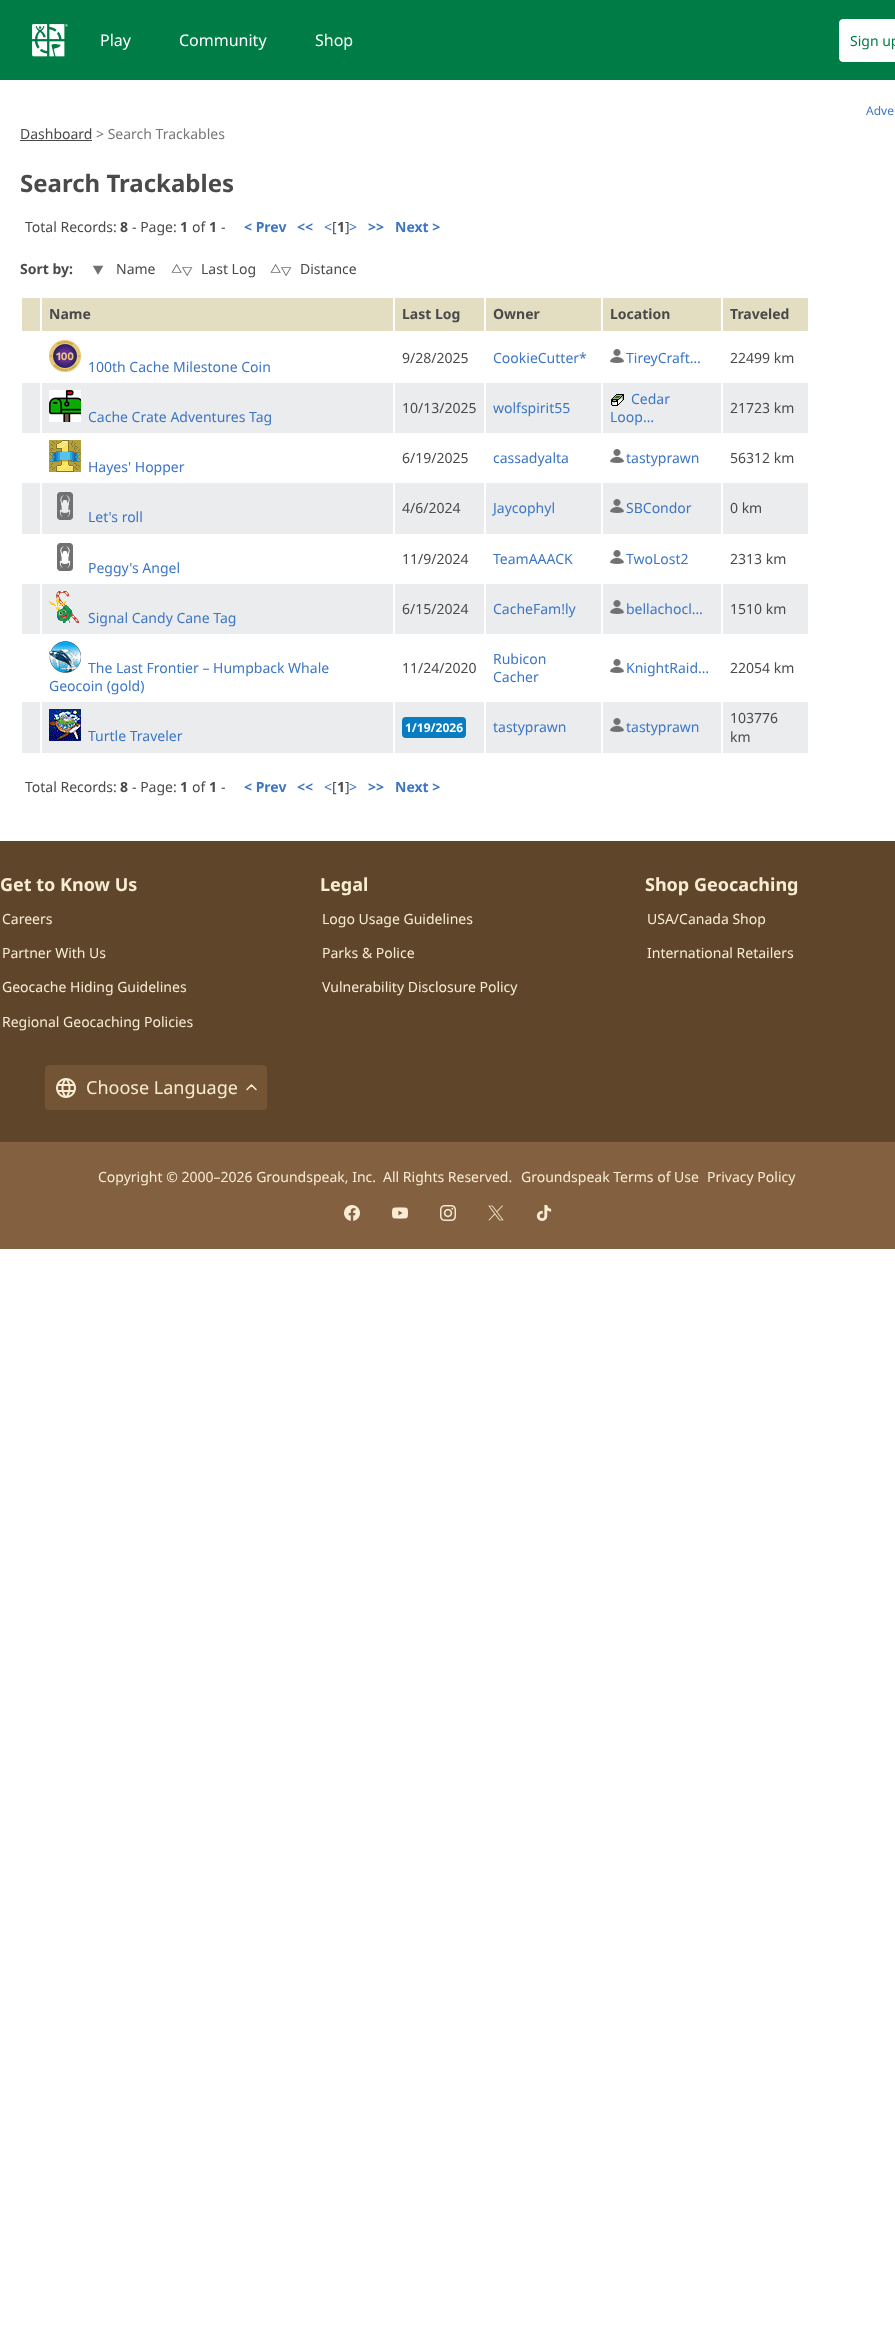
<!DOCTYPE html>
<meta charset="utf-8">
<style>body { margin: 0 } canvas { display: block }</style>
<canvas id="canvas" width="895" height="2337"></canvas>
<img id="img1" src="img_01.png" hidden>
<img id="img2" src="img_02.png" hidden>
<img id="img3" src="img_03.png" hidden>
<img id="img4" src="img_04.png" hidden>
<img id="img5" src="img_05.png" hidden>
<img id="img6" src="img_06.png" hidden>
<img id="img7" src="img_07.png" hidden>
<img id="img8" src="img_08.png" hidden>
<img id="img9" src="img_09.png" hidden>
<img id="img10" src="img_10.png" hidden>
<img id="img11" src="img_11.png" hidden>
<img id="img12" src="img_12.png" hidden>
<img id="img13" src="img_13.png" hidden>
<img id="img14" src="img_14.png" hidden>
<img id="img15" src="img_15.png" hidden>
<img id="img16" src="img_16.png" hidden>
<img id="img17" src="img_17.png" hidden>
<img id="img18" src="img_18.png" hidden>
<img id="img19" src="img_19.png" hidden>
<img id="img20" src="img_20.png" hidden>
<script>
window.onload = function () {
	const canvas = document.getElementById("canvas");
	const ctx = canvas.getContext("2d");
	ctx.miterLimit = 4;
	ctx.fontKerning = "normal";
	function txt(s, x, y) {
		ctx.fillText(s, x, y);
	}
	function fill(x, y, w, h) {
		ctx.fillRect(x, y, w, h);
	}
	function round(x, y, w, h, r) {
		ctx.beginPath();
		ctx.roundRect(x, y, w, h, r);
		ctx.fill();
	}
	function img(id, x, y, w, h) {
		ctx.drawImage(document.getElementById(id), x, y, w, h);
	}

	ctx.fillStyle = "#FFFFFF";
	fill(0, 0, 895, 2337);
	ctx.fillStyle = "#007D46";
	fill(0, 0, 895, 80);
	img("img1", 32, 24, 36, 33);
	ctx.fillStyle = "#FFFFFF";
	ctx.beginPath();
	ctx.roundRect(839.5, 19.5, 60, 42, 3.5);
	ctx.fill();
	ctx.strokeStyle = "#FFFFFF";
	ctx.stroke();
	ctx.fillStyle = "#4A4A4A";
	fill(20, 140, 72, 1);
	img("img2", 93, 265, 11, 10);
	img("img3", 171, 264, 22, 12);
	img("img3", 270, 264, 22, 12);
	ctx.fillStyle = "#E3DDC2";
	fill(22, 298, 18, 33);
	fill(42, 298, 351, 33);
	fill(395, 298, 89, 33);
	fill(486, 298, 115, 33);
	fill(603, 298, 118, 33);
	fill(723, 298, 85, 33);
	img("img4", 610, 349, 14, 14);
	img("img5", 49, 340, 32, 32);
	ctx.fillStyle = "#EBECED";
	fill(22, 383, 786, 50);
	img("img6", 611, 394, 13, 12);
	img("img7", 49, 390, 32, 32);
	ctx.fillStyle = "#FFFFFF";
	fill(393, 382, 2, 52);
	fill(484, 382, 2, 52);
	fill(601, 382, 2, 52);
	img("img4", 610, 449, 14, 14);
	fill(721, 382, 2, 52);
	fill(40, 382, 2, 52);
	img("img8", 49, 440, 32, 32);
	ctx.fillStyle = "#EBECED";
	fill(22, 483, 786, 51);
	img("img9", 610, 499, 14, 14);
	img("img10", 57, 492, 16, 28);
	ctx.fillStyle = "#FFFFFF";
	fill(393, 482, 2, 53);
	fill(484, 482, 2, 53);
	fill(601, 482, 2, 53);
	img("img4", 610, 550, 14, 14);
	fill(721, 482, 2, 53);
	fill(40, 482, 2, 53);
	img("img11", 57, 543, 16, 28);
	ctx.fillStyle = "#EBECED";
	fill(22, 584, 786, 50);
	img("img9", 610, 600, 14, 14);
	img("img12", 49, 591, 31, 32);
	ctx.fillStyle = "#FFFFFF";
	fill(40, 583, 2, 52);
	img("img13", 49, 641, 32, 32);
	fill(393, 583, 2, 52);
	fill(484, 583, 2, 52);
	fill(601, 583, 2, 52);
	img("img4", 610, 659, 14, 14);
	fill(721, 583, 2, 52);
	ctx.fillStyle = "#EBECED";
	fill(22, 702, 786, 51);
	ctx.fillStyle = "#FFFFFF";
	fill(393, 701, 2, 54);
	ctx.fillStyle = "#097DC3";
	round(402, 717, 64, 21, 4);
	ctx.fillStyle = "#FFFFFF";
	fill(484, 701, 2, 54);
	fill(601, 701, 2, 54);
	img("img9", 610, 718, 14, 14);
	fill(721, 701, 2, 54);
	fill(40, 701, 2, 54);
	img("img14", 49, 709, 32, 32);
	ctx.fillStyle = "#5F452A";
	fill(0, 841, 895, 301);
	ctx.fillStyle = "#735536";
	round(45, 1065, 222, 45, 4);
	img("img15", 56, 1078, 20, 20);
	ctx.beginPath();
	ctx.moveTo(256, 1089.5);
	ctx.lineTo(251.5, 1085);
	ctx.lineTo(247, 1089.5);
	ctx.strokeStyle = "#F8EDD4";
	ctx.lineWidth = 1.5;
	ctx.lineCap = "round";
	ctx.lineJoin = "round";
	ctx.stroke();
	ctx.fillStyle = "#83603F";
	fill(0, 1142, 895, 107);
	img("img16", 344, 1205, 16, 16);
	img("img17", 392, 1207, 16, 12);
	img("img18", 440, 1205, 16, 16);
	img("img19", 488, 1205, 16, 16);
	img("img20", 536, 1205, 16, 16);
	ctx.font = "16px Noto Sans";
	ctx.fillStyle = "#FFFFFF";
	txt("Play", 100, 46);
	txt("Community", 179, 46);
	txt("Shop", 315, 46);
	ctx.font = "14px Noto Sans";
	ctx.fillStyle = "#007D46";
	txt("Sign up", 850, 46);
	ctx.font = "12px Noto Sans";
	ctx.fillStyle = "#3D76C5";
	txt("Adve", 866, 115);
	ctx.font = "14px Noto Sans";
	ctx.fillStyle = "#4A4A4A";
	txt("Dashboard", 20, 139);
	ctx.fillStyle = "#777777";
	txt("> Search Trackables", 96, 139);
	ctx.font = "bold 24px Noto Sans";
	ctx.fillStyle = "#4A4A4A";
	txt("Search Trackables", 20, 192);
	ctx.font = "14px Noto Sans";
	txt("Total Records:", 25, 232);
	ctx.font = "bold 14px Noto Sans";
	txt("8", 120, 232);
	ctx.font = "14px Noto Sans";
	txt("- Page:", 132, 232);
	ctx.font = "bold 14px Noto Sans";
	txt("1", 180, 232);
	ctx.font = "14px Noto Sans";
	txt("of", 192, 232);
	ctx.font = "bold 14px Noto Sans";
	txt("1", 209, 232);
	ctx.font = "14px Noto Sans";
	txt("-", 221, 232);
	ctx.font = "bold 14px Noto Sans";
	ctx.fillStyle = "#3D76C5";
	txt("< Prev", 244, 232);
	txt("<<", 297, 232);
	ctx.font = "14px Noto Sans";
	txt("<", 324, 232);
	ctx.fillStyle = "#4A4A4A";
	txt("[", 332, 232);
	ctx.font = "bold 14px Noto Sans";
	txt("1", 337, 232);
	ctx.font = "14px Noto Sans";
	txt("]", 345, 232);
	ctx.fillStyle = "#3D76C5";
	txt(">", 349, 232);
	ctx.font = "bold 14px Noto Sans";
	txt(">>", 368, 232);
	txt("Next >", 395, 232);
	ctx.fillStyle = "#4A4A4A";
	txt("Sort by:", 20, 274);
	ctx.font = "14px Noto Sans";
	txt("Name", 116, 274);
	txt("Last Log", 201, 274);
	txt("Distance", 300, 274);
	ctx.font = "bold 14px Noto Sans";
	txt("Name", 49, 319);
	txt("Last Log", 402, 319);
	txt("Owner", 493, 319);
	txt("Location", 610, 319);
	txt("Traveled", 730, 319);
	ctx.font = "14px Noto Sans";
	txt("9/28/2025", 402, 363);
	ctx.fillStyle = "#3D76C5";
	txt("CookieCutter*", 493, 363);
	txt("TireyCraft…", 626, 363);
	ctx.fillStyle = "#4A4A4A";
	txt("22499 km", 730, 363);
	ctx.fillStyle = "#3D76C5";
	txt("100th Cache Milestone Coin", 88, 372);
	ctx.fillStyle = "#4A4A4A";
	txt("10/13/2025", 402, 413);
	ctx.fillStyle = "#3D76C5";
	txt("wolfspirit55", 493, 413);
	txt("Cedar", 631, 404);
	txt("Loop…", 610, 422);
	ctx.fillStyle = "#4A4A4A";
	txt("21723 km", 730, 413);
	ctx.fillStyle = "#3D76C5";
	txt("Cache Crate Adventures Tag", 88, 422);
	ctx.fillStyle = "#4A4A4A";
	txt("6/19/2025", 402, 463);
	ctx.fillStyle = "#3D76C5";
	txt("cassadyalta", 493, 463);
	txt("tastyprawn", 626, 463);
	ctx.fillStyle = "#4A4A4A";
	txt("56312 km", 730, 463);
	ctx.fillStyle = "#3D76C5";
	txt("Hayes' Hopper", 88, 472);
	ctx.fillStyle = "#4A4A4A";
	txt("4/6/2024", 402, 513);
	ctx.fillStyle = "#3D76C5";
	txt("Jaycophyl", 493, 513);
	txt("SBCondor", 626, 513);
	ctx.fillStyle = "#4A4A4A";
	txt("0 km", 730, 513);
	ctx.fillStyle = "#3D76C5";
	txt("Let's roll", 88, 522);
	ctx.fillStyle = "#4A4A4A";
	txt("11/9/2024", 402, 564);
	ctx.fillStyle = "#3D76C5";
	txt("TeamAAACK", 493, 564);
	txt("TwoLost2", 626, 564);
	ctx.fillStyle = "#4A4A4A";
	txt("2313 km", 730, 564);
	ctx.fillStyle = "#3D76C5";
	txt("Peggy's Angel", 88, 573);
	ctx.fillStyle = "#4A4A4A";
	txt("6/15/2024", 402, 614);
	ctx.fillStyle = "#3D76C5";
	txt("CacheFam!ly", 493, 614);
	txt("bellachocl…", 626, 614);
	ctx.fillStyle = "#4A4A4A";
	txt("1510 km", 730, 614);
	ctx.fillStyle = "#3D76C5";
	txt("Signal Candy Cane Tag", 88, 623);
	txt("The Last Frontier – Humpback Whale", 88, 673);
	txt("Geocoin (gold)", 49, 691);
	ctx.fillStyle = "#4A4A4A";
	txt("11/24/2020", 402, 673);
	ctx.fillStyle = "#3D76C5";
	txt("Rubicon", 493, 664);
	txt("Cacher", 493, 682);
	txt("KnightRaid…", 626, 673);
	ctx.fillStyle = "#4A4A4A";
	txt("22054 km", 730, 673);
	ctx.font = "bold 12px Noto Sans";
	ctx.fillStyle = "#FFFFFF";
	txt("1/19/2026", 405, 732);
	ctx.font = "14px Noto Sans";
	ctx.fillStyle = "#3D76C5";
	txt("tastyprawn", 493, 732);
	txt("tastyprawn", 626, 732);
	ctx.fillStyle = "#4A4A4A";
	txt("103776", 730, 723);
	txt("km", 730, 742);
	ctx.fillStyle = "#3D76C5";
	txt("Turtle Traveler", 88, 741);
	ctx.fillStyle = "#4A4A4A";
	txt("Total Records:", 25, 792);
	ctx.font = "bold 14px Noto Sans";
	txt("8", 120, 792);
	ctx.font = "14px Noto Sans";
	txt("- Page:", 132, 792);
	ctx.font = "bold 14px Noto Sans";
	txt("1", 180, 792);
	ctx.font = "14px Noto Sans";
	txt("of", 192, 792);
	ctx.font = "bold 14px Noto Sans";
	txt("1", 209, 792);
	ctx.font = "14px Noto Sans";
	txt("-", 221, 792);
	ctx.font = "bold 14px Noto Sans";
	ctx.fillStyle = "#3D76C5";
	txt("< Prev", 244, 792);
	txt("<<", 297, 792);
	ctx.font = "14px Noto Sans";
	txt("<", 324, 792);
	ctx.fillStyle = "#4A4A4A";
	txt("[", 332, 792);
	ctx.font = "bold 14px Noto Sans";
	txt("1", 337, 792);
	ctx.font = "14px Noto Sans";
	txt("]", 345, 792);
	ctx.fillStyle = "#3D76C5";
	txt(">", 349, 792);
	ctx.font = "bold 14px Noto Sans";
	txt(">>", 368, 792);
	txt("Next >", 395, 792);
	ctx.font = "bold 18px Noto Sans";
	ctx.fillStyle = "#F8EDD4";
	txt("Get to Know Us", 0, 891);
	ctx.font = "14px Noto Sans";
	txt("Careers", 2, 924);
	txt("Partner With Us", 2, 958);
	txt("Geocache Hiding Guidelines", 2, 992);
	txt("Regional Geocaching Policies", 2, 1027);
	ctx.font = "bold 18px Noto Sans";
	txt("Legal", 320, 891);
	ctx.font = "14px Noto Sans";
	txt("Logo Usage Guidelines", 322, 924);
	txt("Parks & Police", 322, 958);
	txt("Vulnerability Disclosure Policy", 322, 992);
	ctx.font = "bold 18px Noto Sans";
	txt("Shop Geocaching", 645, 891);
	ctx.font = "14px Noto Sans";
	txt("USA/Canada Shop", 647, 924);
	txt("International Retailers", 647, 958);
	ctx.font = "18px Noto Sans";
	txt("Choose Language", 86, 1094);
	ctx.font = "14px Noto Sans";
	txt("Copyright © 2000–2026 Groundspeak, Inc.", 98, 1182);
	txt("All Rights Reserved.", 383, 1182);
	txt("Groundspeak Terms of Use", 521, 1182);
	txt("Privacy Policy", 707, 1182);
};
</script>
